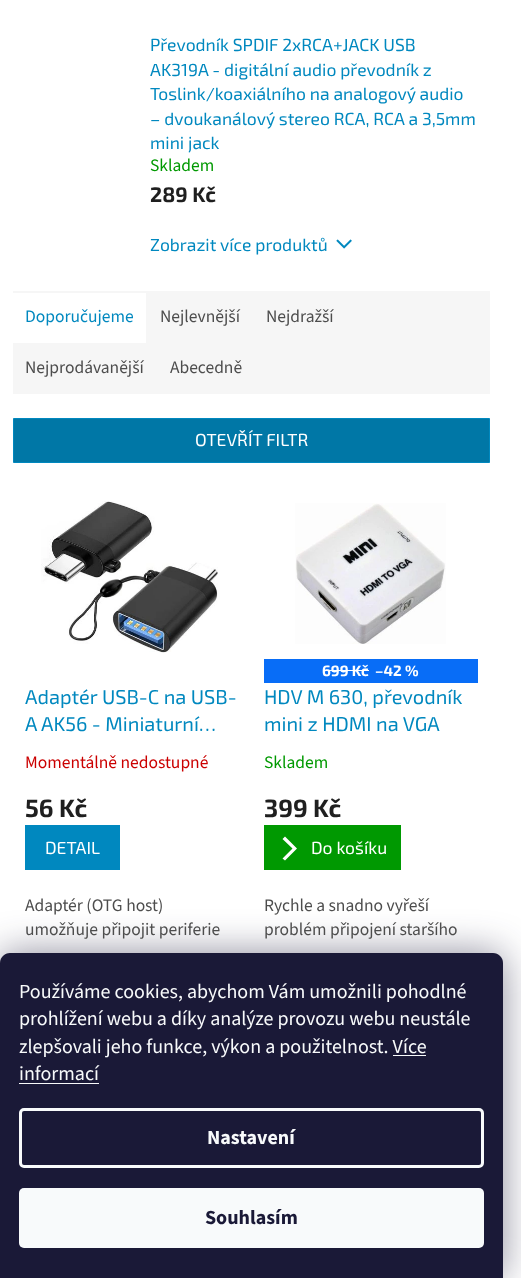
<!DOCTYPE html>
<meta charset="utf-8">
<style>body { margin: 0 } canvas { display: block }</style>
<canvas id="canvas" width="521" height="1278"></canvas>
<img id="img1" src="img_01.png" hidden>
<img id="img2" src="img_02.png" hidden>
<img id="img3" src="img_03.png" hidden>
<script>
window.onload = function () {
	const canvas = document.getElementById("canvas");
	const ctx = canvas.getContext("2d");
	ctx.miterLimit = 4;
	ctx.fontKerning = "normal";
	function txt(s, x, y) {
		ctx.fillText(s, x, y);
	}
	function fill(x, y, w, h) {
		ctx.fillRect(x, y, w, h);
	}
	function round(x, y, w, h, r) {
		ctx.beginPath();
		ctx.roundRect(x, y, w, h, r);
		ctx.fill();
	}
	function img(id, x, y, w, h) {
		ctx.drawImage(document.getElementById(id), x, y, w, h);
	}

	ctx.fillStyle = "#FFFFFF";
	fill(0, 0, 521, 1278);
	img("img1", 336, 239, 16, 10);
	ctx.fillStyle = "#F6F6F6";
	fill(13, 291, 477, 103);
	ctx.fillStyle = "#FFFFFF";
	fill(13, 293, 133, 50);
	ctx.fillStyle = "#0077A6";
	ctx.beginPath();
	ctx.rect(13.5, 418.5, 476, 44);
	ctx.fill();
	ctx.strokeStyle = "#0088BF";
	ctx.stroke();
	img("img2", 41, 501, 177, 152);
	ctx.fillStyle = "#0088BF";
	fill(25, 825, 95, 45);
	img("img3", 295, 503, 151, 141);
	ctx.fillStyle = "#086DF7";
	fill(264, 659, 214, 24);
	ctx.fillStyle = "#FFFFFF";
	fill(323, 670, 46, 1);
	ctx.fillStyle = "#009901";
	fill(264, 825, 137, 45);
	ctx.fillStyle = "#FFFFFF";
	ctx.beginPath();
	ctx.moveTo(285, 860.5);
	ctx.lineTo(282.5, 858.5);
	ctx.lineTo(292.5, 848.5);
	ctx.lineTo(282.5, 839);
	ctx.lineTo(285, 836.5);
	ctx.lineTo(297, 848.5);
	ctx.closePath();
	ctx.fill();
	ctx.fillStyle = "rgba(27, 25, 57, 0.5)";
	ctx.filter = "blur(19px)";
	ctx.beginPath();
	ctx.roundRect(0, 953, 503, 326, 10);
	ctx.fill();
	ctx.filter = "none";
	ctx.fillStyle = "#1A1937";
	ctx.beginPath();
	ctx.moveTo(10, 953);
	ctx.lineTo(493, 953);
	ctx.bezierCurveTo(498.5, 953, 503, 957.5, 503, 963);
	ctx.lineTo(503, 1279);
	ctx.lineTo(0, 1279);
	ctx.lineTo(0, 963);
	ctx.bezierCurveTo(0, 957.5, 4.5, 953, 10, 953);
	ctx.closePath();
	ctx.fill();
	ctx.fillStyle = "#F8FAFB";
	fill(393, 1055, 33, 1);
	fill(19, 1083, 80, 1);
	ctx.beginPath();
	ctx.roundRect(20.5, 1109.5, 462, 57, 3.5);
	ctx.strokeStyle = "#F8FAFB";
	ctx.lineWidth = 3;
	ctx.stroke();
	round(19, 1188, 465, 60, 5);
	ctx.font = "17.5px 'Exo 2'";
	ctx.fillStyle = "#0088BF";
	txt("Převodník SPDIF 2xRCA+JACK USB", 150, 51);
	txt("AK319A - digitální audio převodník z", 150, 76);
	txt("Toslink/koaxiálního na analogový audio", 150, 100);
	txt("– dvoukanálový stereo RCA, RCA a 3,5mm", 150, 125);
	txt("mini jack", 150, 149);
	ctx.font = "17.5px 'Source Sans 3'";
	ctx.fillStyle = "#009901";
	txt("Skladem", 150, 171);
	ctx.font = "bold 21px 'Exo 2'";
	ctx.fillStyle = "#1F1F1F";
	txt("289 Kč", 150, 202);
	ctx.font = "17.5px 'Exo 2'";
	ctx.fillStyle = "#0088BF";
	txt("Zobrazit více produktů", 150, 251);
	ctx.font = "17.5px 'Source Sans 3'";
	txt("Doporučujeme", 25, 322);
	ctx.fillStyle = "#4D4D4D";
	txt("Nejlevnější", 160, 322);
	txt("Nejdražší", 266, 322);
	txt("Nejprodávanější", 25, 373);
	txt("Abecedně", 170, 373);
	ctx.font = "17.5px 'Exo 2'";
	ctx.fillStyle = "#FFFFFF";
	txt("OTEVŘÍT FILTR", 195, 446);
	ctx.font = "20px 'Exo 2'";
	ctx.fillStyle = "#0088BF";
	txt("Adaptér USB-C na USB-", 25, 704);
	txt("A AK56 - Miniaturní…", 25, 731);
	ctx.font = "17.5px 'Source Sans 3'";
	ctx.fillStyle = "#CB0000";
	txt("Momentálně nedostupné", 25, 768);
	ctx.font = "bold 25px 'Exo 2'";
	ctx.fillStyle = "#1F1F1F";
	txt("56 Kč", 25, 817);
	ctx.font = "17.5px 'Exo 2'";
	ctx.fillStyle = "#FFFFFF";
	txt("DETAIL", 45, 854);
	ctx.font = "17.5px 'Source Sans 3'";
	ctx.fillStyle = "#4D4D4D";
	txt("Adaptér (OTG host)", 25, 911);
	txt("umožňuje připojit periferie", 25, 935);
	ctx.font = "bold 15px 'Exo 2'";
	ctx.fillStyle = "#FFFFFF";
	txt("699 Kč", 322, 676);
	txt("–42 %", 375, 676);
	ctx.font = "20px 'Exo 2'";
	ctx.fillStyle = "#0088BF";
	txt("HDV M 630, převodník", 264, 704);
	txt("mini z HDMI na VGA", 264, 731);
	ctx.font = "17.5px 'Source Sans 3'";
	ctx.fillStyle = "#009901";
	txt("Skladem", 264, 768);
	ctx.font = "bold 25px 'Exo 2'";
	ctx.fillStyle = "#1F1F1F";
	txt("399 Kč", 264, 817);
	ctx.font = "17.5px 'Exo 2'";
	ctx.fillStyle = "#FFFFFF";
	txt("Do košíku", 311, 854);
	ctx.font = "17.5px 'Source Sans 3'";
	ctx.fillStyle = "#4D4D4D";
	txt("Rychle a snadno vyřeší", 264, 911);
	txt("problém připojení staršího", 264, 935);
	ctx.font = "20px 'Source Sans 3'";
	ctx.fillStyle = "#F8FAFB";
	txt("Používáme cookies, abychom Vám umožnili pohodlné", 19, 998);
	txt("prohlížení webu a díky analýze provozu webu neustále", 19, 1025);
	txt("zlepšovali jeho funkce, výkon a použitelnost. Více", 19, 1053);
	txt("informací", 19, 1080);
	ctx.font = "bold 20px 'Source Sans 3'";
	txt("Nastavení", 207, 1144);
	ctx.fillStyle = "#1A1937";
	txt("Souhlasím", 205, 1224);
};
</script>
